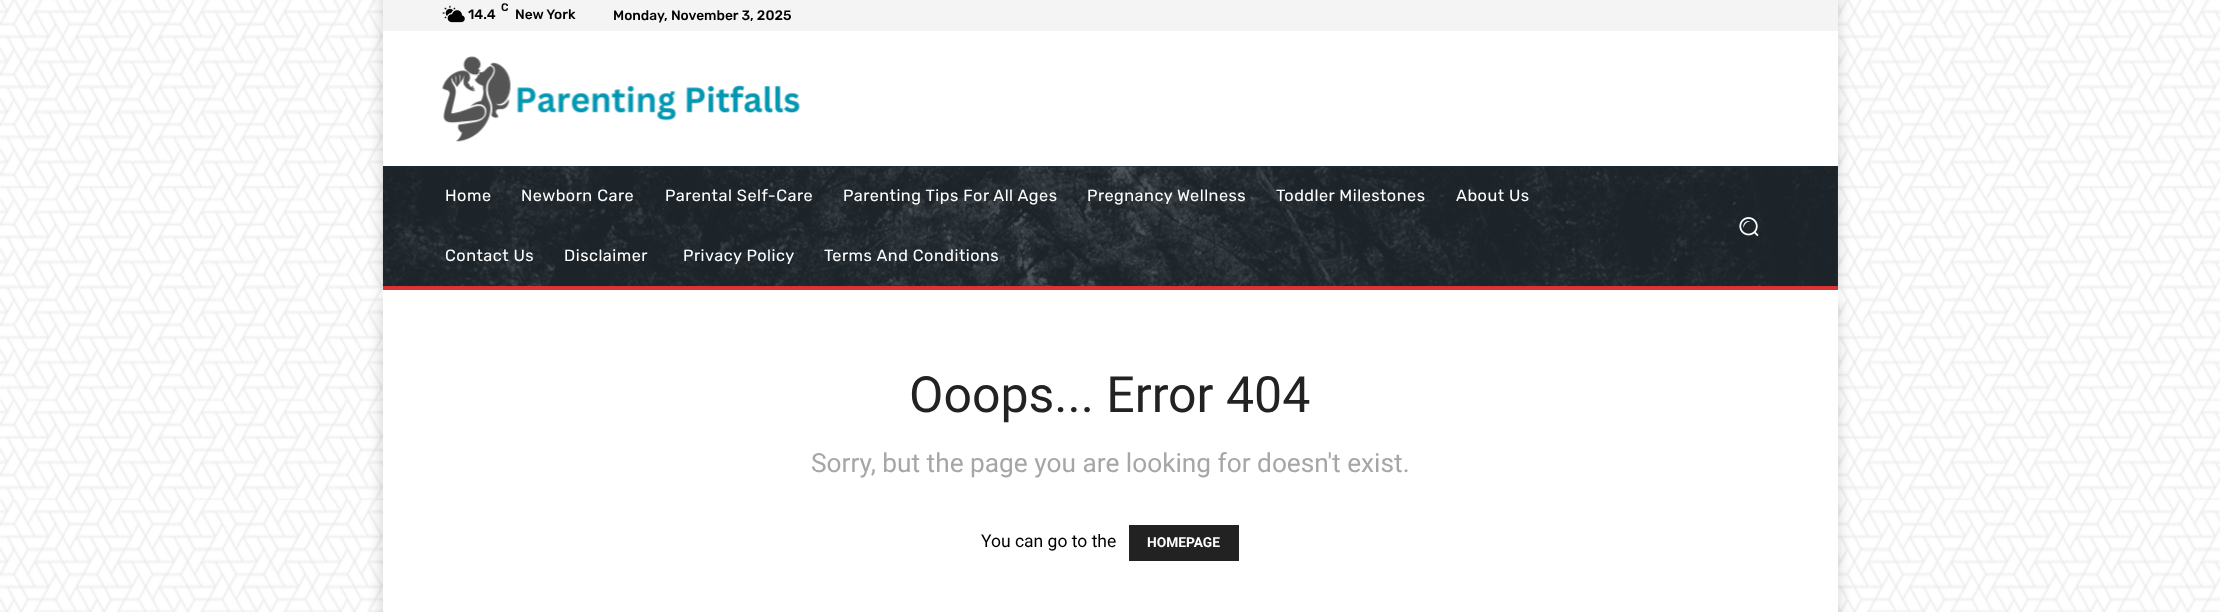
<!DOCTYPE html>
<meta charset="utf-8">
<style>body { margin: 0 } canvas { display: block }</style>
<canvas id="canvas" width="2220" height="612"></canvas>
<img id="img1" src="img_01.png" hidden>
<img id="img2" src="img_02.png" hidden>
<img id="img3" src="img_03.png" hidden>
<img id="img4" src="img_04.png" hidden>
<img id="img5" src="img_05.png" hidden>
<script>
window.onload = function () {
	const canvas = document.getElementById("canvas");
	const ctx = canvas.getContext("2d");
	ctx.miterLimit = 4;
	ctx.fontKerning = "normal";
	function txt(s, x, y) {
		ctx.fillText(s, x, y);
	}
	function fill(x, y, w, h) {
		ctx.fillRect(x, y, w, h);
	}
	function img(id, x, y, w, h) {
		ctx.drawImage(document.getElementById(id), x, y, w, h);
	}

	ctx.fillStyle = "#FFFFFF";
	fill(0, 0, 2220, 612);
	img("img1", 0, 0, 2220, 612);
	ctx.fillStyle = "rgba(0, 0, 0, 0.12)";
	ctx.filter = "blur(6px)";
	ctx.beginPath();
	ctx.rect(379, 299, 1462, 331);
	ctx.fill();
	ctx.filter = "none";
	ctx.fillStyle = "#FFFFFF";
	fill(383, 303, 1455, 309);
	ctx.fillStyle = "rgba(0, 0, 0, 0.12)";
	ctx.filter = "blur(6px)";
	ctx.beginPath();
	ctx.rect(379, -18, 1462, 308);
	ctx.fill();
	ctx.filter = "none";
	ctx.fillStyle = "#F4F4F4";
	fill(383, 0, 1455, 31);
	img("img2", 442, 5, 23, 18);
	ctx.fillStyle = "#FFFFFF";
	fill(383, 31, 1455, 272);
	img("img3", 442, 56, 358, 86);
	ctx.fillStyle = "#232D35";
	fill(383, 166, 1455, 120);
	img("img4", 382, 166, 1455, 120);
	img("img5", 1739, 217, 20, 20);
	ctx.fillStyle = "#DD3333";
	fill(383, 286, 1455, 4);
	ctx.fillStyle = "#222222";
	fill(1129, 525, 110, 36);
	ctx.font = "500 11px Rubik";
	ctx.fillStyle = "#000000";
	txt("C", 501, 11);
	ctx.font = "500 13.75px Rubik";
	txt("14.4", 468, 19);
	txt("New York", 515, 19);
	txt("Monday, November 3, 2025", 613, 20);
	ctx.letterSpacing = "0.5px";
	ctx.font = "16.25px Rubik";
	ctx.fillStyle = "#FFFFFF";
	txt("Home", 445, 201);
	txt("Newborn Care", 521, 201);
	txt("Parental Self-Care", 665, 201);
	txt("Parenting Tips For All Ages", 843, 201);
	txt("Pregnancy Wellness", 1087, 201);
	txt("Toddler Milestones", 1276, 201);
	txt("About Us", 1456, 201);
	txt("Contact Us", 445, 261);
	txt("Disclaimer", 564, 261);
	txt("Privacy Policy", 683, 261);
	txt("Terms And Conditions", 824, 261);
	ctx.letterSpacing = "0px";
	ctx.font = "50px Roboto";
	ctx.fillStyle = "#222222";
	txt("Ooops... Error 404", 909, 412);
	ctx.font = "26.25px Roboto";
	ctx.fillStyle = "#A6A6A6";
	txt("Sorry, but the page you are looking for doesn't exist.", 811, 472);
	ctx.font = "17.5px Roboto";
	ctx.fillStyle = "#000000";
	txt("You can go to the", 981, 547);
	ctx.font = "bold 13.75px Roboto";
	ctx.fillStyle = "#FFFFFF";
	txt("HOMEPAGE", 1147, 547);
};
</script>
